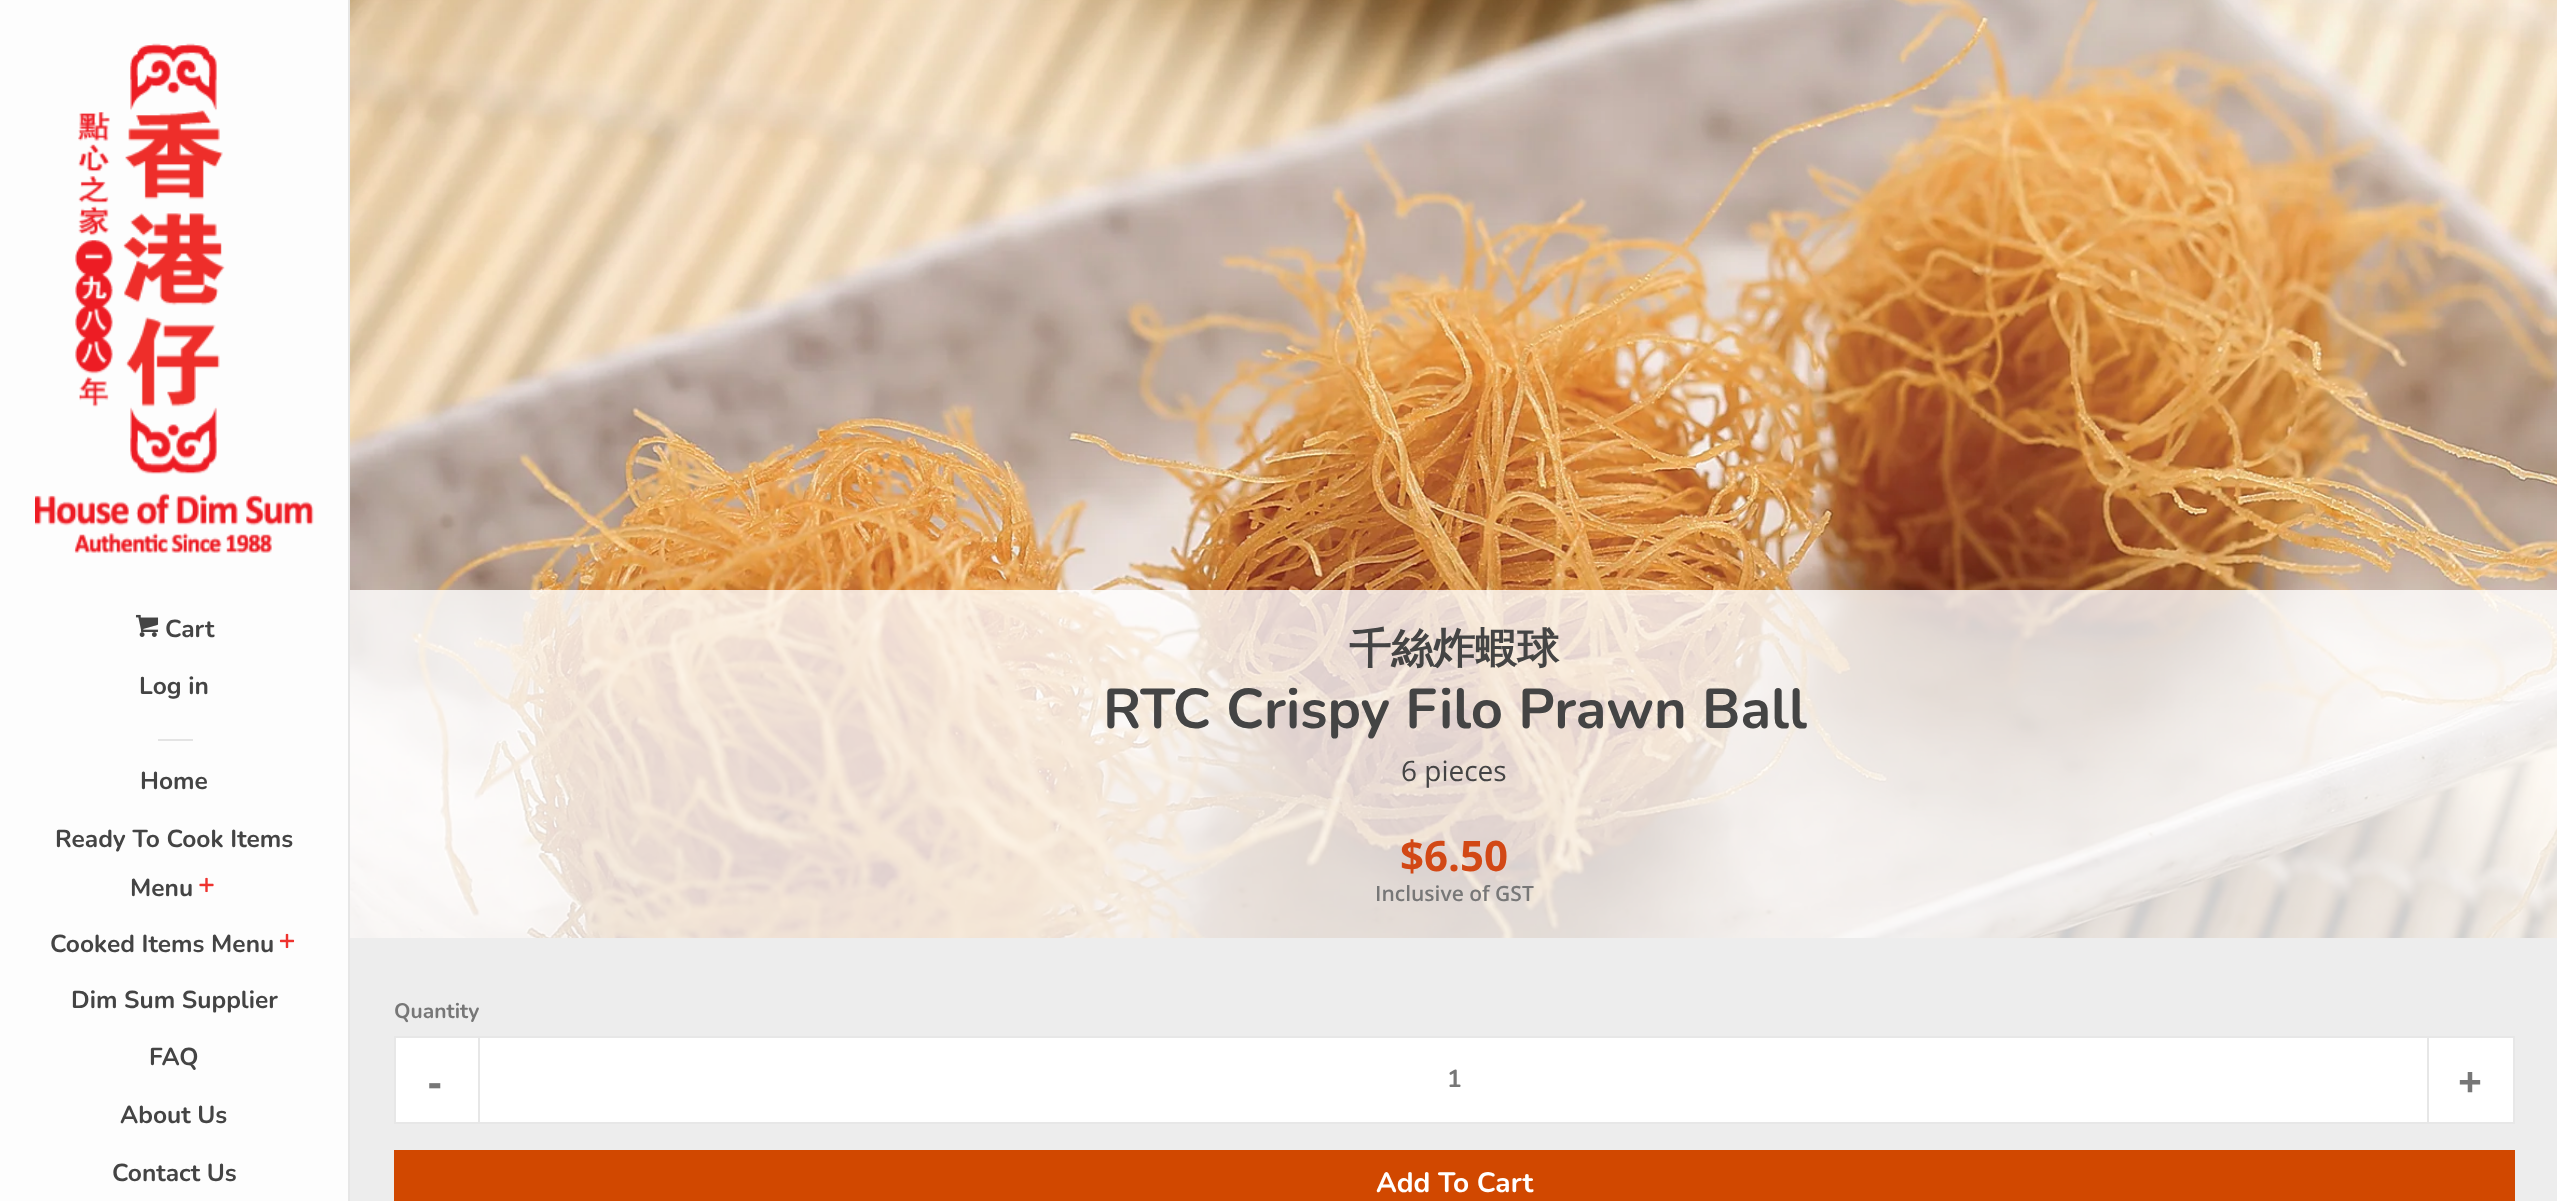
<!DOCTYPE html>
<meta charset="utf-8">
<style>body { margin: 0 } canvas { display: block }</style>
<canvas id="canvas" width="2557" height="1201"></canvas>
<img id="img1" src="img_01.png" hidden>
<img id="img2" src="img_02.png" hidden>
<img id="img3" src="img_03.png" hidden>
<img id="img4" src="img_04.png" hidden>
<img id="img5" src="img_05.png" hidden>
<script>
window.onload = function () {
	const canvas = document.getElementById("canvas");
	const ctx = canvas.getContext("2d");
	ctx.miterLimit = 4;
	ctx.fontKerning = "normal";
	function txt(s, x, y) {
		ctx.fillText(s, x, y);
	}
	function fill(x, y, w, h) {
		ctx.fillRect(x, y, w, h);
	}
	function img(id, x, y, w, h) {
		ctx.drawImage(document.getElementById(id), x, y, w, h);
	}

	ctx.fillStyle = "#EDEDED";
	fill(0, 0, 2557, 1201);
	ctx.fillStyle = "#FDFDFD";
	fill(0, 0, 348, 1201);
	ctx.fillStyle = "#E6E6E6";
	fill(348, 0, 2, 1201);
	img("img1", 35, 43, 279, 510);
	img("img2", 135, 614, 24, 23);
	ctx.fillStyle = "#E4E4E4";
	fill(158, 739, 35, 2);
	img("img3", 199, 877, 15, 16);
	img("img4", 279, 933, 16, 16);
	img("img5", 350, 0, 2207, 938);
	ctx.fillStyle = "rgba(255, 255, 255, 0.8)";
	fill(350, 590, 2207, 348);
	ctx.fillStyle = "#FFFFFF";
	ctx.beginPath();
	ctx.rect(395, 1037, 2119, 86);
	ctx.fill();
	ctx.strokeStyle = "#E7E7E7";
	ctx.lineWidth = 2;
	ctx.stroke();
	ctx.fillStyle = "#E7E7E7";
	fill(478, 1036, 2, 88);
	fill(2427, 1036, 2, 88);
	ctx.fillStyle = "#D14800";
	fill(394, 1150, 2121, 51);
	ctx.font = "200 24.5px Nunito";
	ctx.fillStyle = "#444444";
	txt("Cart", 165, 637);
	txt("Log in", 139, 694);
	txt("Home", 140, 789);
	txt("Ready To Cook Items", 55, 847);
	txt("Menu", 130, 896);
	txt("Cooked Items Menu", 50, 952);
	txt("Dim Sum Supplier", 71, 1008);
	txt("FAQ", 149, 1065);
	txt("About Us", 120, 1123);
	txt("Contact Us", 112, 1181);
	ctx.font = "bold 42px WenQuanYi Zen Hei";
	txt("千絲炸蝦球", 1349, 663);
	ctx.font = "200 56px Nunito";
	txt("RTC Crispy Filo Prawn Ball", 1103, 728);
	ctx.font = "28px Open Sans";
	txt("6 pieces", 1401, 781);
	ctx.font = "bold 42px Open Sans";
	ctx.fillStyle = "#D24815";
	txt("$6.50", 1400, 871);
	ctx.font = "600 21px Open Sans";
	ctx.fillStyle = "#777777";
	txt("Inclusive of GST", 1375, 901);
	ctx.font = "200 21px Nunito";
	txt("Quantity", 394, 1018);
	ctx.font = "bold 42px Open Sans";
	txt("-", 428, 1097);
	ctx.font = "200 24.5px Nunito";
	txt("1", 1447, 1087);
	ctx.font = "bold 42px Open Sans";
	txt("+", 2458, 1097);
	ctx.font = "200 28px Nunito";
	ctx.fillStyle = "#FFFFFF";
	txt("Add To Cart", 1376, 1192);
};
</script>
